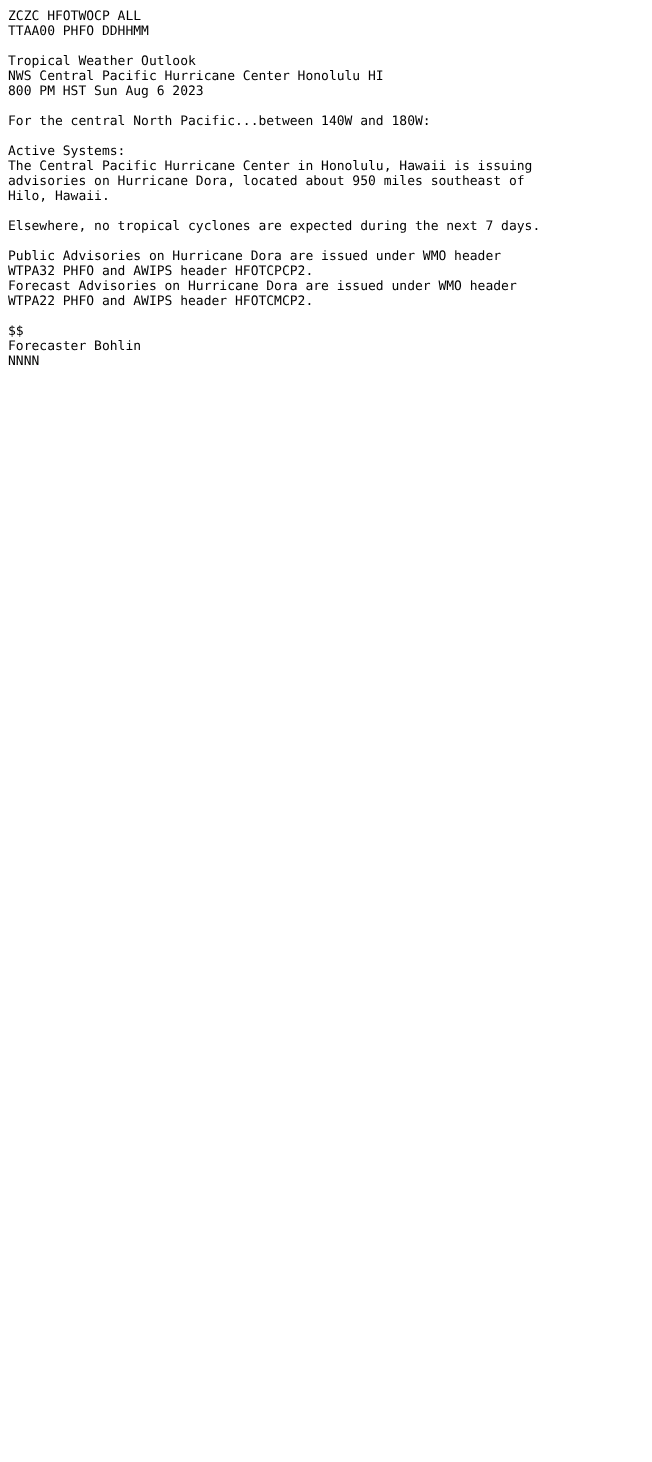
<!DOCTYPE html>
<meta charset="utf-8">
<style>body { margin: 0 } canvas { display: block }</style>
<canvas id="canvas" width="652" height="1462"></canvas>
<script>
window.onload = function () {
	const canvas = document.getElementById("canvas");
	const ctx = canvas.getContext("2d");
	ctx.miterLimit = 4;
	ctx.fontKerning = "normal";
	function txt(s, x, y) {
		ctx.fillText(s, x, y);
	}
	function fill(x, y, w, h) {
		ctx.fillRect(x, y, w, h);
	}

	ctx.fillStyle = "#FFFFFF";
	fill(0, 0, 652, 1462);
	ctx.font = "13px DejaVu Sans Mono";
	ctx.fillStyle = "#000000";
	txt("ZCZC HFOTWOCP ALL", 8, 20);
	txt("TTAA00 PHFO DDHHMM", 8, 35);
	txt("Tropical Weather Outlook", 8, 65);
	txt("NWS Central Pacific Hurricane Center Honolulu HI", 8, 80);
	txt("800 PM HST Sun Aug 6 2023", 8, 95);
	txt("For the central North Pacific...between 140W and 180W:", 8, 125);
	txt("Active Systems:", 8, 155);
	txt("The Central Pacific Hurricane Center in Honolulu, Hawaii is issuing", 8, 170);
	txt("advisories on Hurricane Dora, located about 950 miles southeast of", 8, 185);
	txt("Hilo, Hawaii.", 8, 200);
	txt("Elsewhere, no tropical cyclones are expected during the next 7 days.", 8, 230);
	txt("Public Advisories on Hurricane Dora are issued under WMO header", 8, 260);
	txt("WTPA32 PHFO and AWIPS header HFOTCPCP2.", 8, 275);
	txt("Forecast Advisories on Hurricane Dora are issued under WMO header", 8, 290);
	txt("WTPA22 PHFO and AWIPS header HFOTCMCP2.", 8, 305);
	txt("$$", 8, 335);
	txt("Forecaster Bohlin", 8, 350);
	txt("NNNN", 8, 365);
};
</script>
